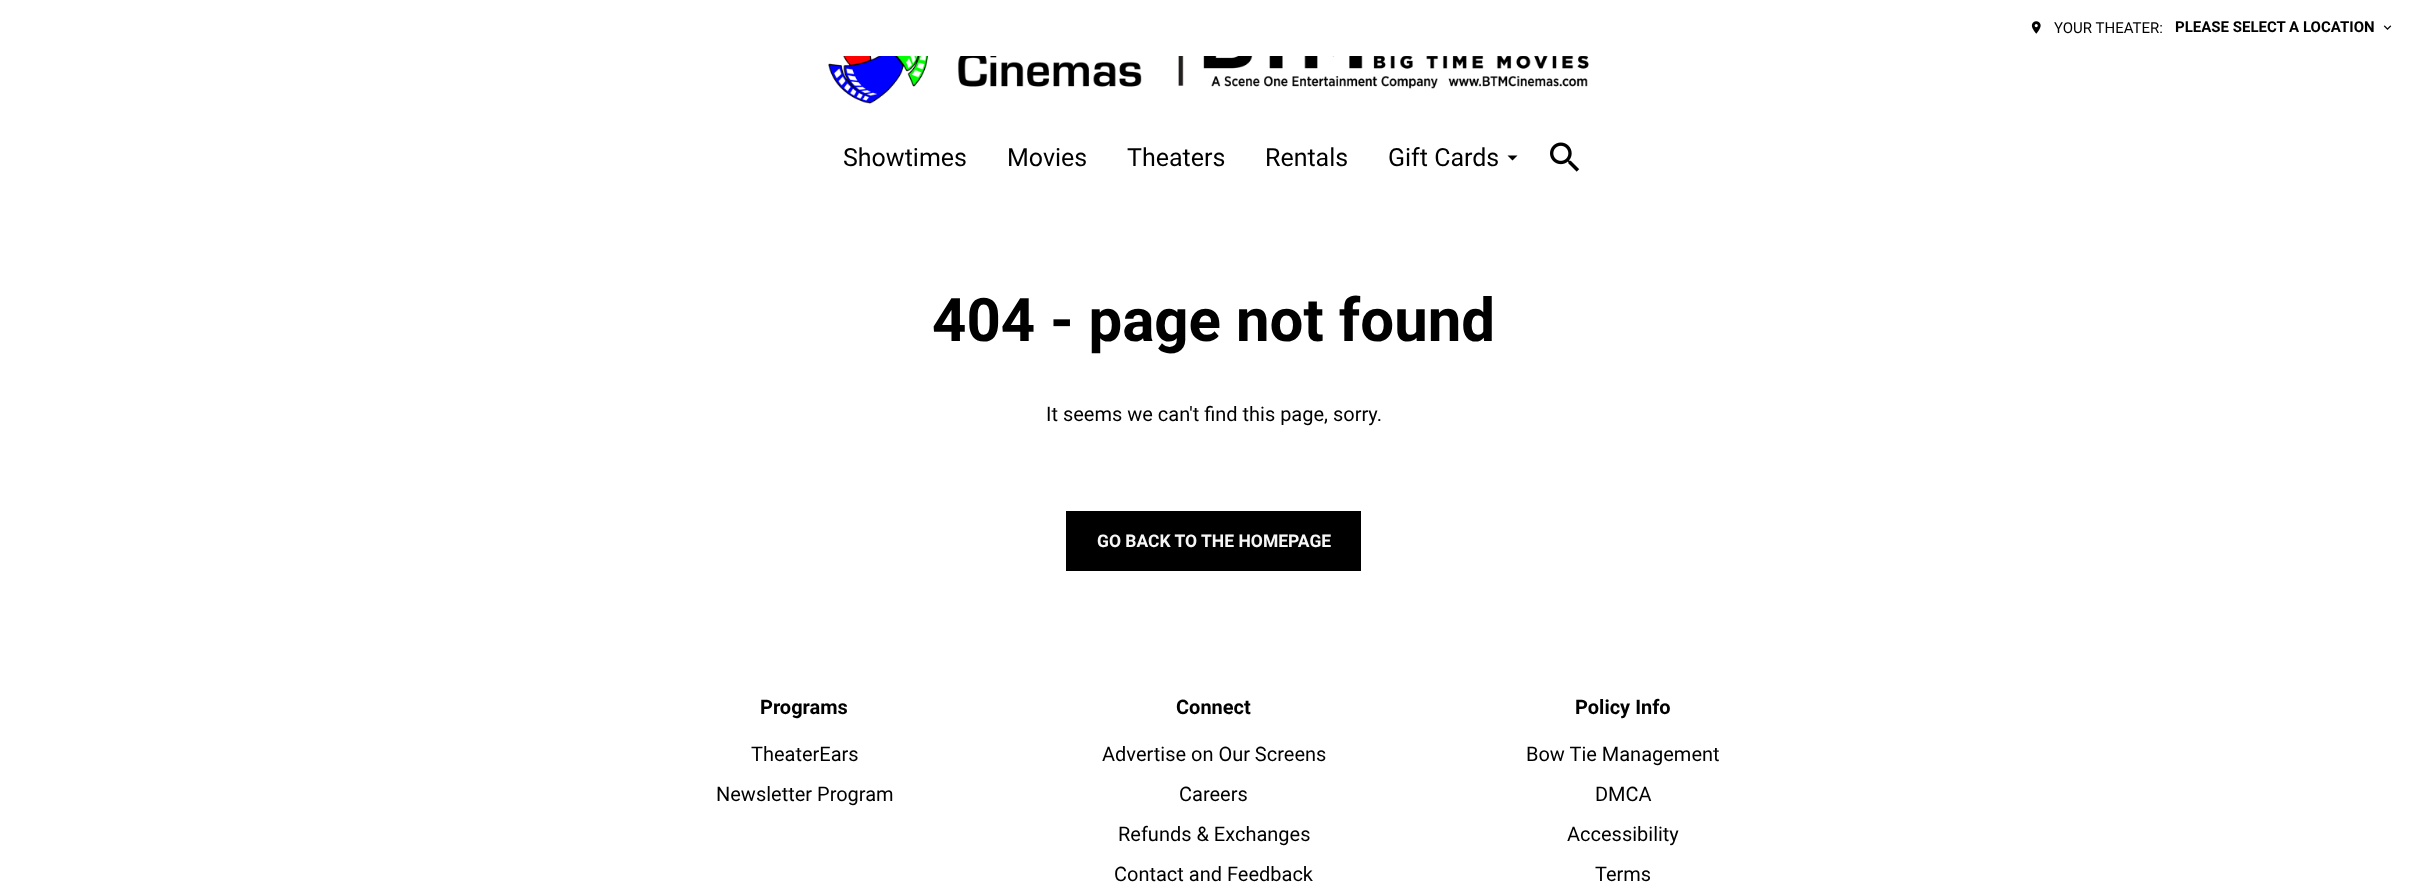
<!DOCTYPE html>
<meta charset="utf-8">
<style>body { margin: 0 } canvas { display: block }</style>
<canvas id="canvas" width="2427" height="885"></canvas>
<img id="img1" src="img_01.png" hidden>
<img id="img2" src="img_02.png" hidden>
<img id="img3" src="img_03.png" hidden>
<img id="img4" src="img_04.png" hidden>
<script>
window.onload = function () {
	const canvas = document.getElementById("canvas");
	const ctx = canvas.getContext("2d");
	ctx.miterLimit = 4;
	ctx.fontKerning = "normal";
	function txt(s, x, y) {
		ctx.fillText(s, x, y);
	}
	function fill(x, y, w, h) {
		ctx.fillRect(x, y, w, h);
	}
	function img(id, x, y, w, h) {
		ctx.drawImage(document.getElementById(id), x, y, w, h);
	}

	ctx.fillStyle = "#FFFFFF";
	fill(0, 0, 2427, 885);
	img("img1", 2031, 21, 10, 13);
	img("img2", 2383, 25, 9, 5);
	img("img3", 828, 56, 761, 48);
	ctx.fillStyle = "#000000";
	ctx.beginPath();
	ctx.moveTo(1507.5, 155.5);
	ctx.lineTo(1512.5, 160.5);
	ctx.lineTo(1517.5, 155.5);
	ctx.closePath();
	ctx.fill();
	img("img4", 1550, 142, 30, 30);
	fill(1066, 511, 295, 60);
	ctx.font = "15px Roboto";
	txt("YOUR THEATER:", 2054, 33);
	ctx.font = "bold 15px Roboto";
	txt("PLEASE SELECT A LOCATION", 2175, 32);
	ctx.font = "25px Roboto";
	txt("Showtimes", 843, 166);
	txt("Movies", 1007, 166);
	txt("Theaters", 1127, 166);
	txt("Rentals", 1265, 166);
	txt("Gift Cards", 1388, 166);
	ctx.font = "bold 60px Roboto";
	txt("404 - page not found", 932, 341);
	ctx.font = "20px Roboto";
	txt("It seems we can't find this page, sorry.", 1046, 421);
	ctx.font = "bold 17.5px Roboto";
	ctx.fillStyle = "#F7F7F7";
	txt("GO BACK TO THE HOMEPAGE", 1097, 547);
	ctx.font = "bold 20px Roboto";
	ctx.fillStyle = "#000000";
	txt("Programs", 760, 714);
	ctx.font = "20px Roboto";
	txt("TheaterEars", 751, 761);
	txt("Newsletter Program", 716, 801);
	ctx.font = "bold 20px Roboto";
	txt("Connect", 1176, 714);
	ctx.font = "20px Roboto";
	txt("Advertise on Our Screens", 1102, 761);
	txt("Careers", 1179, 801);
	txt("Refunds & Exchanges", 1118, 841);
	txt("Contact and Feedback", 1114, 881);
	ctx.font = "bold 20px Roboto";
	txt("Policy Info", 1575, 714);
	ctx.font = "20px Roboto";
	txt("Bow Tie Management", 1526, 761);
	txt("DMCA", 1595, 801);
	txt("Accessibility", 1567, 841);
	txt("Terms", 1595, 881);
};
</script>
